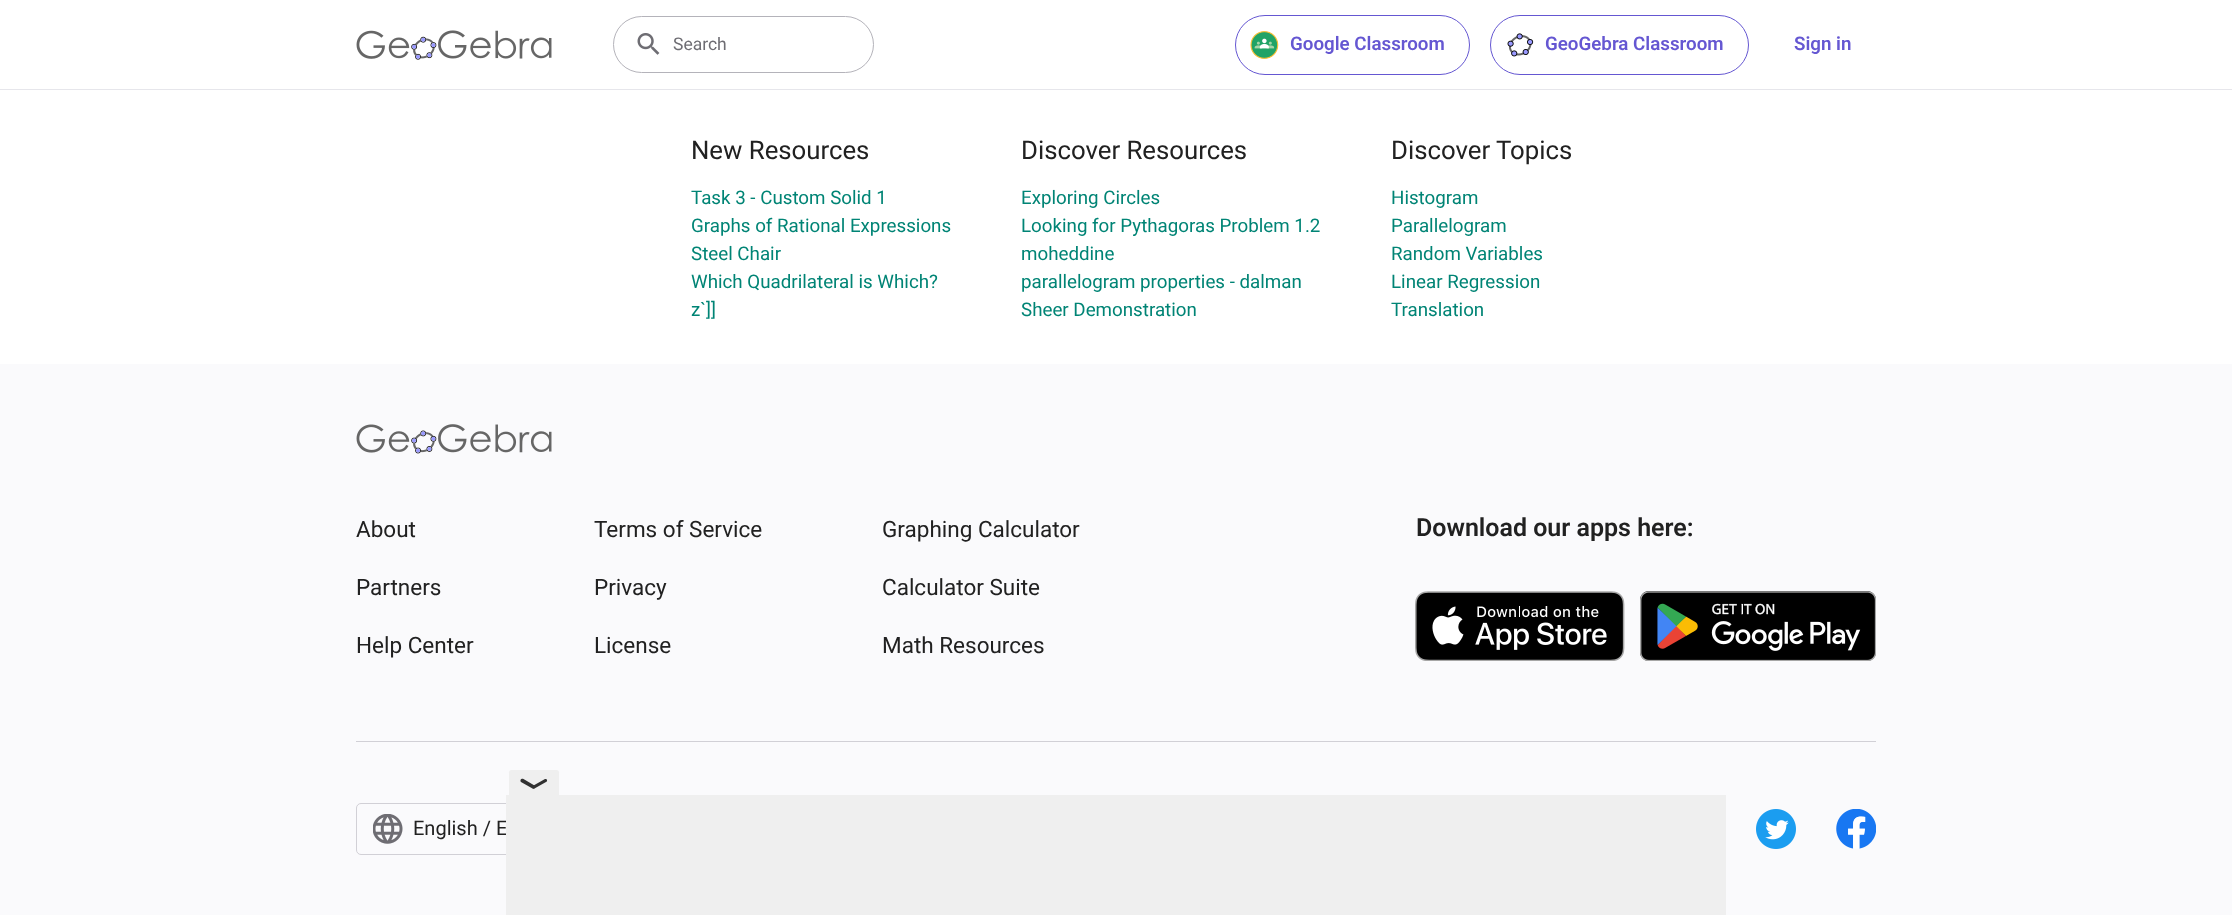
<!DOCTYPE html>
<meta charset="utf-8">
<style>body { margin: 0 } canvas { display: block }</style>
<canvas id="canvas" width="2232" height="915"></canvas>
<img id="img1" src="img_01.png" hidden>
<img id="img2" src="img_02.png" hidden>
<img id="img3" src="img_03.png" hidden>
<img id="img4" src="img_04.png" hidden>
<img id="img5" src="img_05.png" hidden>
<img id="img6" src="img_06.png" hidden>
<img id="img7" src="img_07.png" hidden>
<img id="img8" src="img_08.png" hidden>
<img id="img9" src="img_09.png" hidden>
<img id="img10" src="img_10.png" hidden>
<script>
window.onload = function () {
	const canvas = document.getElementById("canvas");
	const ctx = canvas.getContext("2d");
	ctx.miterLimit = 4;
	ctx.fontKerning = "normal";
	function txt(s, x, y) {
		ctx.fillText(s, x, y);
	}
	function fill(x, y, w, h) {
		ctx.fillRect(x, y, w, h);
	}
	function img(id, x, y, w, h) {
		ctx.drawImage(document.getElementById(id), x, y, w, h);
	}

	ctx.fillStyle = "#FFFFFF";
	fill(0, 0, 2232, 915);
	ctx.fillStyle = "#E6E6EB";
	fill(0, 89, 2232, 1);
	img("img1", 356, 30, 196, 30);
	ctx.beginPath();
	ctx.roundRect(613.5, 16.5, 260, 56, 28);
	ctx.strokeStyle = "#B4B3BA";
	ctx.stroke();
	img("img2", 637, 33, 23, 22);
	ctx.beginPath();
	ctx.roundRect(1235.5, 15.5, 234, 59, 29.5);
	ctx.strokeStyle = "#6557D2";
	ctx.stroke();
	img("img3", 1250, 31, 29, 28);
	ctx.beginPath();
	ctx.roundRect(1490.5, 15.5, 258, 59, 29.5);
	ctx.stroke();
	img("img4", 1507, 33, 27, 24);
	ctx.fillStyle = "#FAFAFC";
	fill(0, 364, 2232, 551);
	img("img5", 356, 424, 196, 30);
	img("img6", 1415, 591, 210, 70);
	img("img7", 1640, 591, 236, 70);
	ctx.fillStyle = "#D1D0D6";
	fill(356, 741, 1520, 1);
	ctx.beginPath();
	ctx.roundRect(356.5, 803.5, 289, 51, 4.5);
	ctx.strokeStyle = "#D1D0D6";
	ctx.stroke();
	img("img8", 373, 814, 30, 30);
	img("img9", 1756, 809, 40, 40);
	img("img10", 1836, 809, 40, 40);
	ctx.fillStyle = "#EFEFEF";
	ctx.beginPath();
	ctx.roundRect(509, 770, 50, 25, [2.5, 2.5, 0, 0]);
	ctx.fill();
	ctx.fillStyle = "#313131";
	ctx.beginPath();
	ctx.moveTo(523.5, 779);
	ctx.lineTo(534.5, 785.5);
	ctx.bezierCurveTo(536, 787.5, 534, 789.5, 532.5, 788.5);
	ctx.lineTo(521, 782);
	ctx.bezierCurveTo(519.5, 780, 521.5, 778, 523.5, 779);
	ctx.closePath();
	ctx.fill();
	ctx.beginPath();
	ctx.moveTo(533.5, 785.5);
	ctx.lineTo(545, 779);
	ctx.bezierCurveTo(547, 778.5, 548, 781, 546, 782);
	ctx.lineTo(534.5, 788.5);
	ctx.bezierCurveTo(532.5, 789, 531.5, 786, 533.5, 785.5);
	ctx.closePath();
	ctx.fill();
	ctx.font = "17.5px Roboto";
	ctx.fillStyle = "#6E6D73";
	txt("Search", 673, 50);
	ctx.font = "600 18.75px Roboto";
	ctx.fillStyle = "#6557D2";
	txt("Google Classroom", 1290, 50);
	txt("GeoGebra Classroom", 1545, 50);
	txt("Sign in", 1794, 50);
	ctx.font = "25.75px Roboto";
	ctx.fillStyle = "#212121";
	txt("New Resources", 691, 159);
	ctx.font = "18.75px Roboto";
	ctx.fillStyle = "#008475";
	txt("Task 3 - Custom Solid 1", 691, 204);
	txt("Graphs of Rational Expressions", 691, 232);
	txt("Steel Chair", 691, 260);
	txt("Which Quadrilateral is Which?", 691, 288);
	txt("z`]]", 691, 316);
	ctx.font = "25.75px Roboto";
	ctx.fillStyle = "#212121";
	txt("Discover Resources", 1021, 159);
	ctx.font = "18.75px Roboto";
	ctx.fillStyle = "#008475";
	txt("Exploring Circles", 1021, 204);
	txt("Looking for Pythagoras Problem 1.2", 1021, 232);
	txt("moheddine", 1021, 260);
	txt("parallelogram properties - dalman", 1021, 288);
	txt("Sheer Demonstration", 1021, 316);
	ctx.font = "25.75px Roboto";
	ctx.fillStyle = "#212121";
	txt("Discover Topics", 1391, 159);
	ctx.font = "18.75px Roboto";
	ctx.fillStyle = "#008475";
	txt("Histogram", 1391, 204);
	txt("Parallelogram", 1391, 232);
	txt("Random Variables", 1391, 260);
	txt("Linear Regression", 1391, 288);
	txt("Translation", 1391, 316);
	ctx.font = "22.5px Roboto";
	ctx.fillStyle = "#212121";
	txt("About", 356, 537);
	txt("Partners", 356, 595);
	txt("Help Center", 356, 653);
	txt("Terms of Service", 594, 537);
	txt("Privacy", 594, 595);
	txt("License", 594, 653);
	txt("Graphing Calculator", 882, 537);
	txt("Calculator Suite", 882, 595);
	txt("Math Resources", 882, 653);
	ctx.font = "600 25px Roboto";
	txt("Download our apps here:", 1416, 536);
	ctx.font = "20px Roboto";
	txt("English / E", 413, 835);
	ctx.fillStyle = "#EFEFEF";
	fill(506, 795, 1220, 120);
};
</script>
